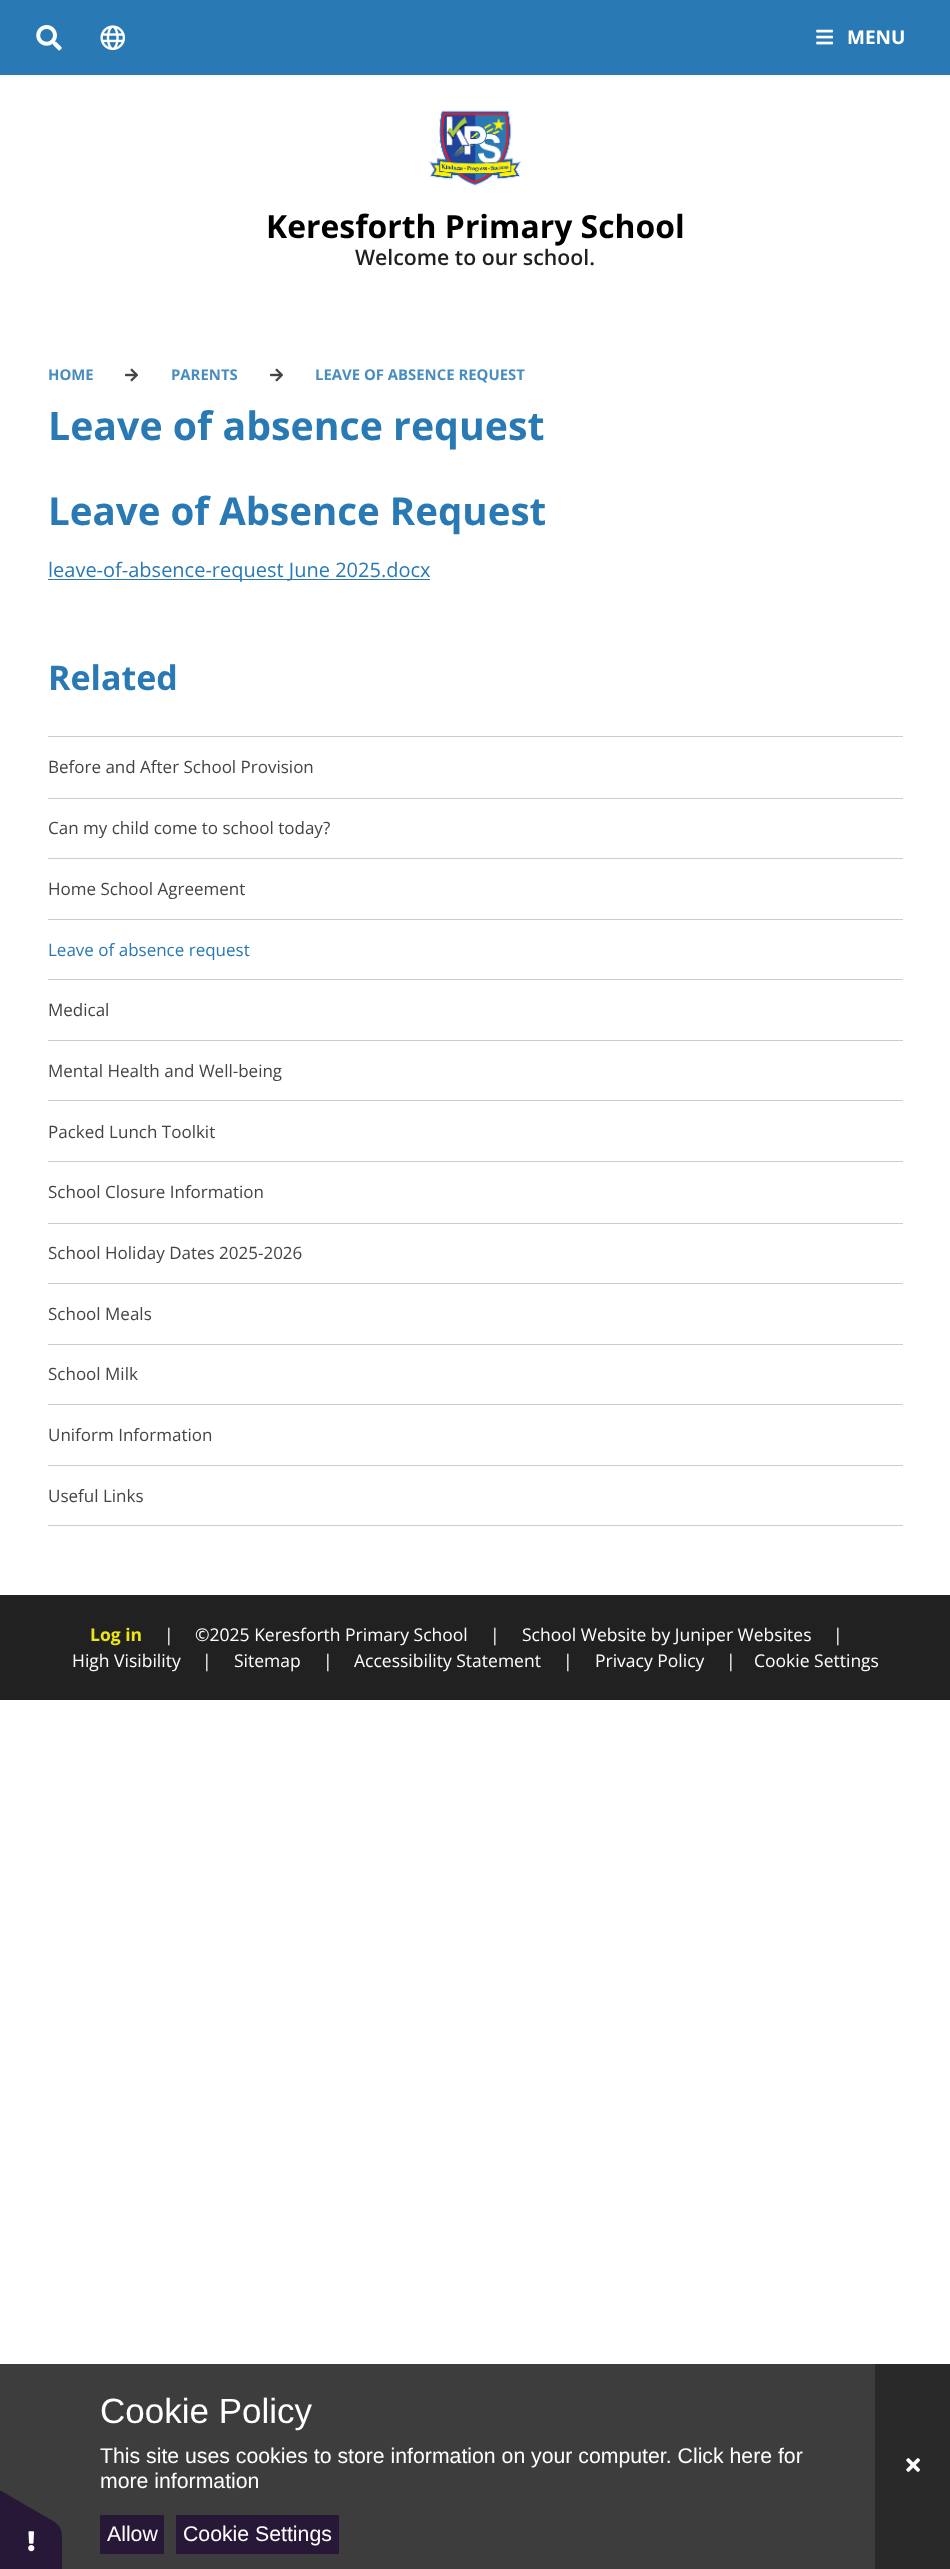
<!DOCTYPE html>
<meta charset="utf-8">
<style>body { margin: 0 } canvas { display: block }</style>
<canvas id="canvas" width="950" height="2569"></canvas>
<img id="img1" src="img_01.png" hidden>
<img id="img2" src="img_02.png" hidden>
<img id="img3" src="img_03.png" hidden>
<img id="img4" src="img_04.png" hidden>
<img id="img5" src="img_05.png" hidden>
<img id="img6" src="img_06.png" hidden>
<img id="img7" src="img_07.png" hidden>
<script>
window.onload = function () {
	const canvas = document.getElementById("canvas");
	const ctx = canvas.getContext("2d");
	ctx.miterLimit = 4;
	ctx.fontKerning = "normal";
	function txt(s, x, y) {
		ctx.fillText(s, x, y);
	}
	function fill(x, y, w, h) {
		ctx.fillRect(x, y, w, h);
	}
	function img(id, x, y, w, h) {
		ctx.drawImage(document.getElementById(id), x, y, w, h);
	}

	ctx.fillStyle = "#FFFFFF";
	fill(0, 0, 950, 2569);
	ctx.fillStyle = "#2979B5";
	fill(0, 0, 950, 75);
	img("img1", 36, 25, 26, 26);
	img("img2", 100, 25, 26, 26);
	img("img3", 816, 29, 17, 16);
	img("img4", 428, 110, 94, 76);
	img("img5", 125, 368, 13, 14);
	img("img5", 270, 368, 13, 14);
	fill(48, 579, 382, 1);
	ctx.fillStyle = "#CCCCCC";
	fill(48, 736, 855, 1);
	fill(48, 798, 855, 1);
	fill(48, 858, 855, 1);
	fill(48, 919, 855, 1);
	fill(48, 979, 855, 1);
	fill(48, 1040, 855, 1);
	fill(48, 1100, 855, 1);
	fill(48, 1161, 855, 1);
	fill(48, 1223, 855, 1);
	fill(48, 1283, 855, 1);
	fill(48, 1344, 855, 1);
	fill(48, 1404, 855, 1);
	fill(48, 1465, 855, 1);
	fill(48, 1525, 855, 1);
	ctx.fillStyle = "#212121";
	fill(0, 1595, 950, 105);
	ctx.fillStyle = "#3D3D3D";
	fill(0, 2364, 875, 205);
	ctx.fillStyle = "#281838";
	ctx.beginPath();
	ctx.moveTo(62, 2536);
	ctx.lineTo(62, 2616);
	ctx.bezierCurveTo(62, 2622, 60, 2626, 57, 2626);
	ctx.lineTo(-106, 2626);
	ctx.bezierCurveTo(-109, 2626, -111, 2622, -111, 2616);
	ctx.lineTo(-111, 2536);
	ctx.bezierCurveTo(-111, 2531, -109, 2526, -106, 2526);
	ctx.lineTo(57, 2526);
	ctx.bezierCurveTo(60, 2526, 62, 2531, 62, 2536);
	ctx.closePath();
	ctx.fill();
	ctx.beginPath();
	ctx.moveTo(-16, 2481);
	ctx.lineTo(53, 2521);
	ctx.bezierCurveTo(58, 2524, 61, 2528, 60, 2530);
	ctx.lineTo(-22, 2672);
	ctx.bezierCurveTo(-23, 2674, -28, 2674, -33, 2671);
	ctx.lineTo(-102, 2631);
	ctx.bezierCurveTo(-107, 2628, -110, 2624, -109, 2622);
	ctx.lineTo(-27, 2480);
	ctx.bezierCurveTo(-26, 2478, -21, 2478, -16, 2481);
	ctx.closePath();
	ctx.fill();
	img("img6", 28, 2531, 7, 21);
	fill(100, 2515, 64, 39);
	fill(176, 2515, 163, 39);
	ctx.fillStyle = "#292929";
	fill(875, 2364, 75, 205);
	img("img7", 906, 2458, 14, 14);
	ctx.font = "bold 19px Open Sans";
	ctx.fillStyle = "#FFFFFF";
	txt("MENU", 847, 44);
	ctx.font = "bold 31.9px Open Sans";
	ctx.fillStyle = "#000000";
	txt("Keresforth Primary School", 266, 238);
	ctx.font = "600 21.25px Open Sans";
	ctx.fillStyle = "#202020";
	txt("Welcome to our school.", 355, 265);
	ctx.font = "bold 14.9px Open Sans";
	ctx.fillStyle = "#498DC0";
	txt("HOME", 48, 380);
	txt("PARENTS", 171, 380);
	txt("LEAVE OF ABSENCE REQUEST", 315, 380);
	ctx.font = "bold 39.25px Open Sans";
	ctx.fillStyle = "#2979B5";
	txt("Leave of absence request", 48, 440);
	ctx.font = "bold 38.5px Open Sans";
	txt("Leave of Absence Request", 48, 525);
	ctx.font = "20px Open Sans";
	txt("leave-of-absence-request June 2025.docx", 48, 577);
	ctx.font = "bold 34px Open Sans";
	txt("Related", 48, 690);
	ctx.font = "17px Open Sans";
	ctx.fillStyle = "#444444";
	txt("Before and After School Provision", 48, 773);
	txt("Can my child come to school today?", 48, 834);
	txt("Home School Agreement", 48, 895);
	ctx.fillStyle = "#2979B5";
	txt("Leave of absence request", 48, 956);
	ctx.fillStyle = "#444444";
	txt("Medical", 48, 1016);
	txt("Mental Health and Well-being", 48, 1077);
	txt("Packed Lunch Toolkit", 48, 1138);
	txt("School Closure Information", 48, 1198);
	txt("School Holiday Dates 2025-2026", 48, 1259);
	txt("School Meals", 48, 1320);
	txt("School Milk", 48, 1380);
	txt("Uniform Information", 48, 1441);
	txt("Useful Links", 48, 1502);
	ctx.font = "bold 17.5px Open Sans";
	ctx.fillStyle = "#ECE517";
	txt("Log in", 90, 1641);
	ctx.font = "17.5px Open Sans";
	ctx.fillStyle = "#FFFFFF";
	txt("|", 164, 1641);
	txt("©2025 Keresforth Primary School", 195, 1641);
	txt("|", 490, 1641);
	txt("School Website by Juniper Websites", 522, 1641);
	txt("|", 833, 1641);
	txt("High Visibility", 72, 1667);
	txt("|", 202, 1667);
	txt("Sitemap", 234, 1667);
	txt("|", 323, 1667);
	txt("Accessibility Statement", 354, 1667);
	txt("|", 563, 1667);
	txt("Privacy Policy", 595, 1667);
	txt("|", 726, 1667);
	txt("Cookie Settings", 754, 1667);
	ctx.font = "35px Liberation Sans";
	txt("Cookie Policy", 100, 2423);
	ctx.font = "21.25px Liberation Sans";
	txt("This site uses cookies to store information on your computer. Click here for", 100, 2463);
	txt("more information", 100, 2488);
	txt("Allow", 107, 2541);
	txt("Cookie Settings", 183, 2541);
};
</script>
